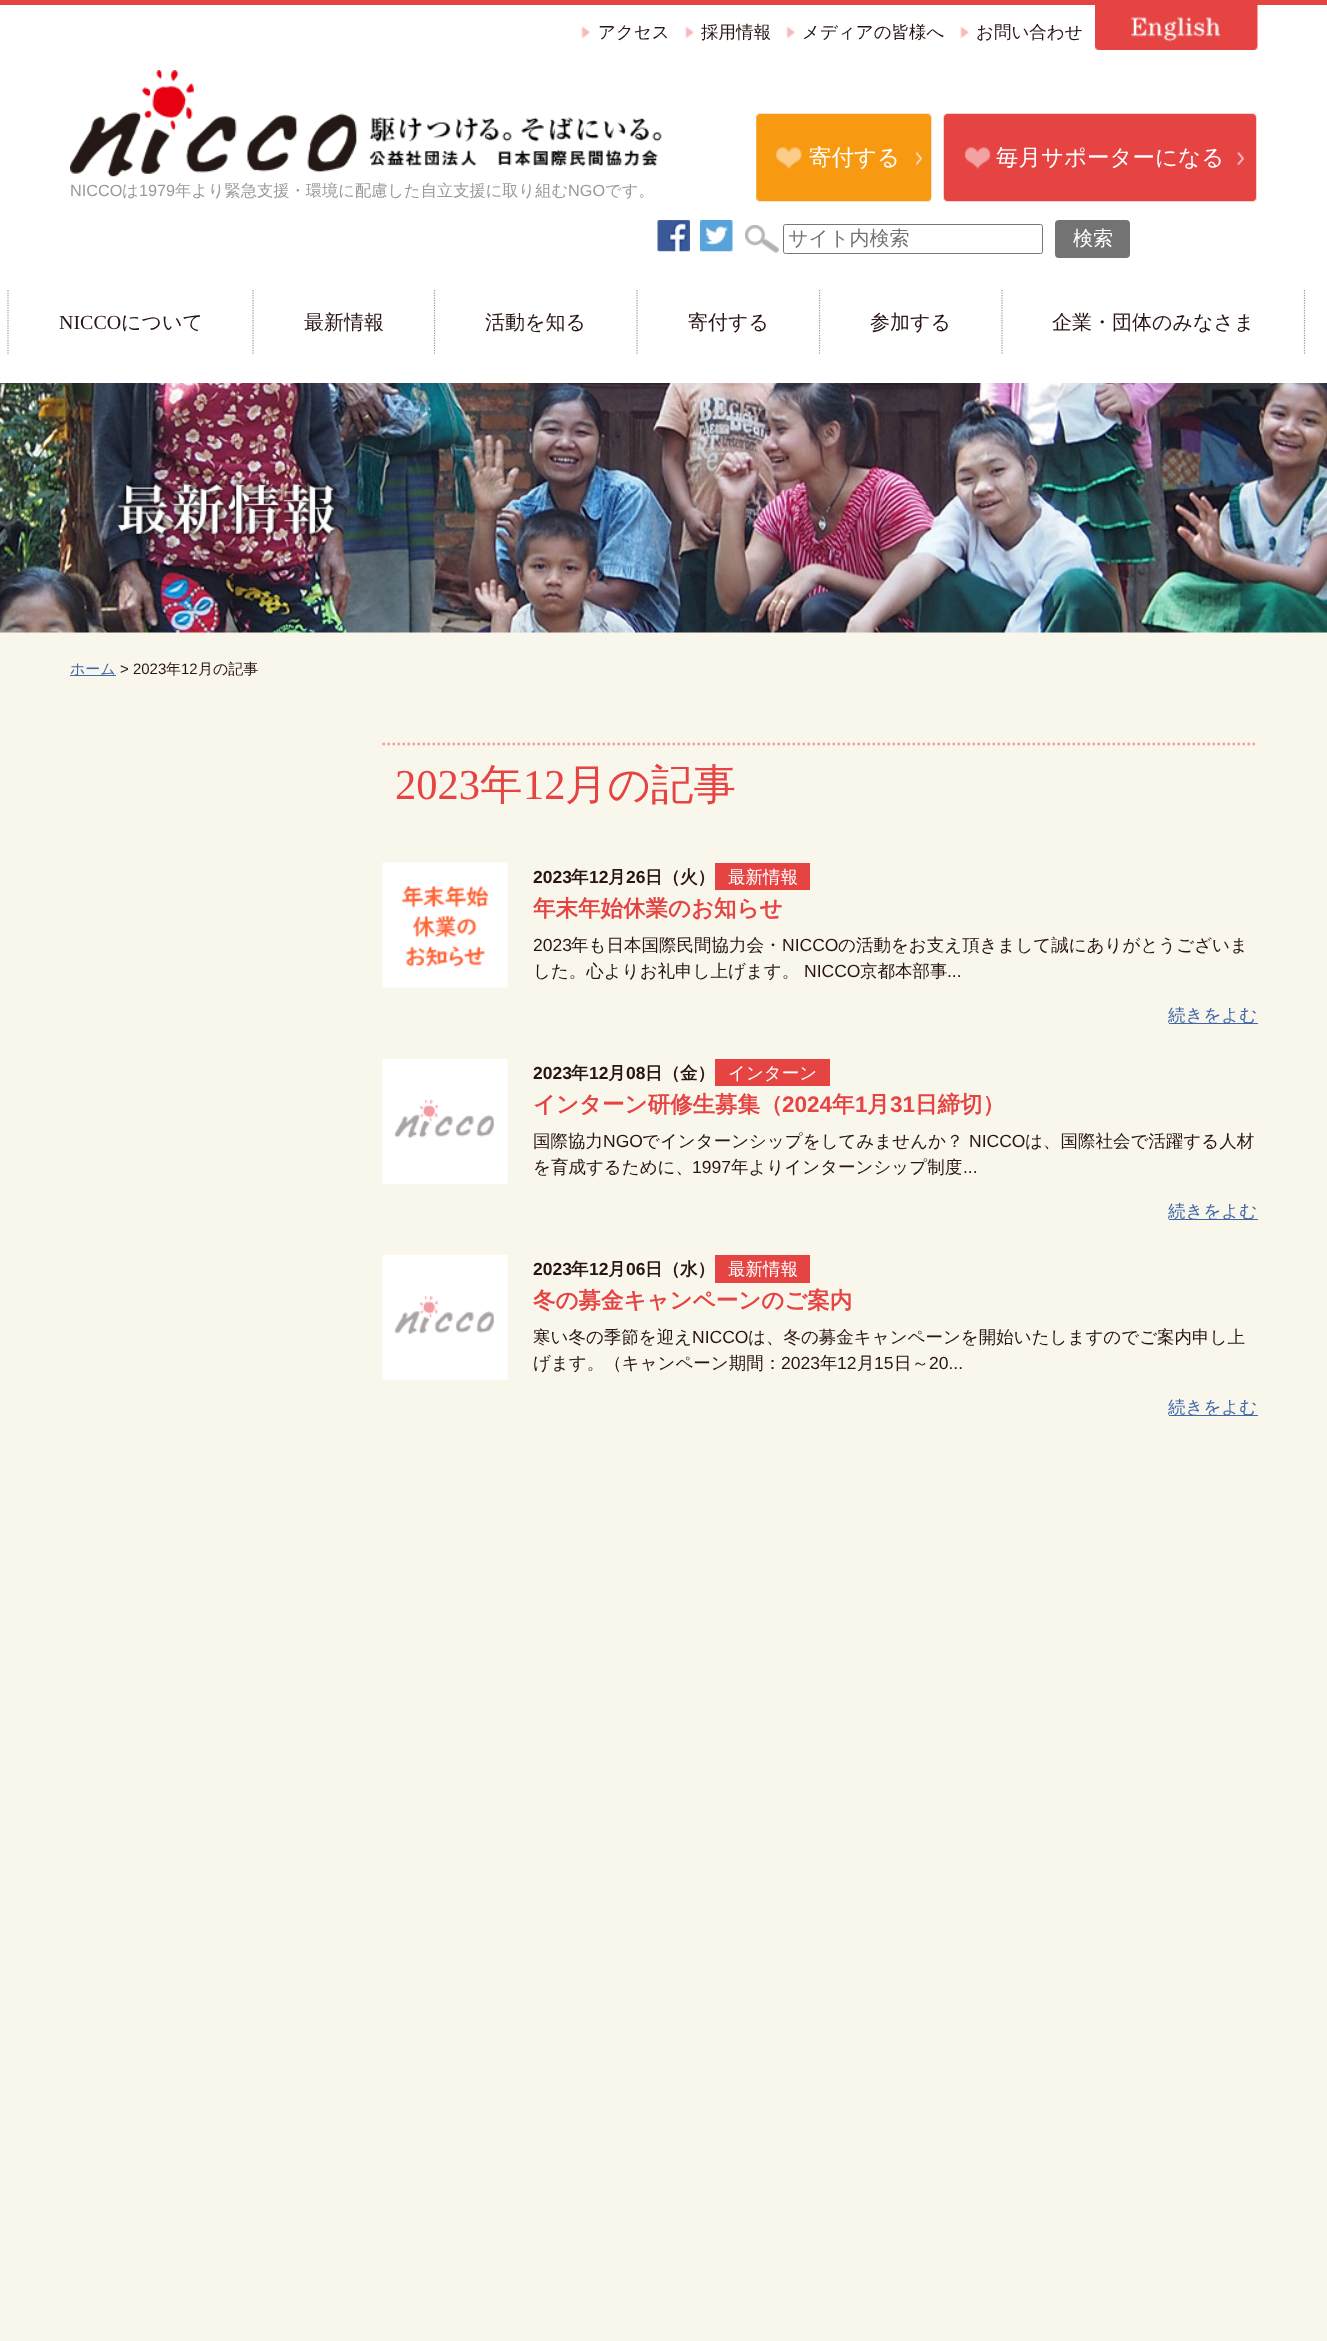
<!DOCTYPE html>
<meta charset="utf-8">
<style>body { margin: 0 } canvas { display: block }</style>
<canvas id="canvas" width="1327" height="2341"></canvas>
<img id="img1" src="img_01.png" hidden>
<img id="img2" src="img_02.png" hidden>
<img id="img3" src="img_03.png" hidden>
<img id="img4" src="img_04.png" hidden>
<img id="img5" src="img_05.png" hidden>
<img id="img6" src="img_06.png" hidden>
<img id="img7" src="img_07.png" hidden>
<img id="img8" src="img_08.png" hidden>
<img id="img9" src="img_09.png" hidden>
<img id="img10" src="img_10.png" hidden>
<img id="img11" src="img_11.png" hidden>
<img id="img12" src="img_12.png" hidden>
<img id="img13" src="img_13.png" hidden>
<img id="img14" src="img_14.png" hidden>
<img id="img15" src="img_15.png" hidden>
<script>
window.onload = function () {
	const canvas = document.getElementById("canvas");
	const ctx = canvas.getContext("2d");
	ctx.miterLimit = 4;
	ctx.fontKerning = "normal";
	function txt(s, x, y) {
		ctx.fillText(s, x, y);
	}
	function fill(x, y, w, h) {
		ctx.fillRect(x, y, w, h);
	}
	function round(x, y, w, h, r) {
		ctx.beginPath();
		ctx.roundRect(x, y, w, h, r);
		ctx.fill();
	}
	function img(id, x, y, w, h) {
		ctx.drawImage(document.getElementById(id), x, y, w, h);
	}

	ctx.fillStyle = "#F9F6EC";
	fill(0, 0, 1327, 2341);
	ctx.fillStyle = "#FFFFFF";
	fill(0, 5, 1327, 378);
	ctx.fillStyle = "#E64343";
	fill(0, 0, 1327, 5);
	img("img1", 581, 26, 9, 13);
	img("img2", 685, 26, 9, 13);
	img("img3", 786, 26, 9, 13);
	img("img4", 960, 26, 9, 13);
	img("img5", 1095, 5, 163, 45);
	img("img6", 756, 113, 176, 89);
	img("img7", 943, 113, 314, 89);
	img("img8", 70, 70, 592, 107);
	img("img9", 657, 220, 33, 32);
	img("img10", 700, 220, 33, 32);
	img("img11", 745, 225, 34, 28);
	ctx.beginPath();
	ctx.roundRect(783.5, 224.5, 259, 29, 2);
	ctx.strokeStyle = "#767676";
	ctx.stroke();
	ctx.fillStyle = "#737373";
	round(1055, 220, 75, 38, 4);
	ctx.beginPath();
	ctx.moveTo(8, 290);
	ctx.lineTo(8, 354);
	ctx.strokeStyle = "#999999";
	ctx.lineWidth = 1.2;
	ctx.setLineDash([1.25, 1.25]);
	ctx.stroke();
	ctx.beginPath();
	ctx.moveTo(253, 290);
	ctx.lineTo(253, 354);
	ctx.stroke();
	ctx.beginPath();
	ctx.moveTo(434.5, 290);
	ctx.lineTo(434.5, 354);
	ctx.stroke();
	ctx.beginPath();
	ctx.moveTo(637, 290);
	ctx.lineTo(637, 354);
	ctx.stroke();
	ctx.beginPath();
	ctx.moveTo(819.5, 290);
	ctx.lineTo(819.5, 354);
	ctx.stroke();
	ctx.beginPath();
	ctx.moveTo(1304.5, 290);
	ctx.lineTo(1304.5, 354);
	ctx.stroke();
	ctx.beginPath();
	ctx.moveTo(1002, 290);
	ctx.lineTo(1002, 354);
	ctx.stroke();
	img("img12", 0, 383, 1327, 250);
	ctx.fillStyle = "#3F66A7";
	fill(70, 675, 46, 1);
	ctx.beginPath();
	ctx.moveTo(382.5, 744);
	ctx.lineTo(1257.5, 744);
	ctx.strokeStyle = "#F29D9D";
	ctx.lineWidth = 2.5;
	ctx.setLineDash([2.5, 2.5]);
	ctx.stroke();
	img("img13", 382, 862, 126, 126);
	ctx.fillStyle = "#E64343";
	fill(715, 863, 95, 27);
	ctx.fillStyle = "#3F66A7";
	fill(1169, 1023, 89, 1);
	img("img14", 382, 1058, 126, 126);
	ctx.fillStyle = "#E64343";
	fill(715, 1059, 115, 27);
	ctx.fillStyle = "#3F66A7";
	fill(1169, 1219, 89, 1);
	img("img15", 382, 1255, 126, 125);
	ctx.fillStyle = "#E64343";
	fill(715, 1255, 95, 28);
	ctx.fillStyle = "#3F66A7";
	fill(1169, 1415, 89, 1);
	ctx.font = "500 17.5px WenQuanYi Zen Hei";
	ctx.fillStyle = "#281412";
	txt("アクセス", 598, 38);
	txt("採用情報", 701, 38);
	txt("メディアの皆様へ", 802, 38);
	txt("お問い合わせ", 976, 38);
	ctx.font = "500 22.5px WenQuanYi Zen Hei";
	ctx.fillStyle = "#FFFFFF";
	txt("寄付する", 809, 165);
	txt("毎月サポーターになる", 996, 165);
	ctx.font = "16.25px Liberation Sans";
	ctx.fillStyle = "#999999";
	txt("NICCO", 70, 196);
	ctx.font = "500 16.25px WenQuanYi Zen Hei";
	txt("は", 122, 196);
	ctx.font = "16.25px Liberation Sans";
	txt("1979", 139, 196);
	ctx.font = "500 16.25px WenQuanYi Zen Hei";
	txt("年より緊急支援・環境に配慮した自立支援に取り組む", 175, 196);
	ctx.font = "16.25px Liberation Sans";
	txt("NGO", 568, 196);
	ctx.font = "500 16.25px WenQuanYi Zen Hei";
	txt("です。", 605, 196);
	ctx.font = "500 20px WenQuanYi Zen Hei";
	ctx.fillStyle = "#757575";
	txt("サイト内検索", 788, 245);
	ctx.fillStyle = "#FFFFFF";
	txt("検索", 1073, 245);
	ctx.font = "20px Liberation Serif";
	ctx.fillStyle = "#281412";
	txt("NICCO", 59, 329);
	ctx.font = "500 20px WenQuanYi Zen Hei";
	txt("について", 121, 329);
	txt("最新情報", 304, 329);
	txt("活動を知る", 485, 329);
	txt("寄付する", 688, 329);
	txt("参加する", 870, 329);
	txt("企業・団体のみなさま", 1052, 329);
	ctx.font = "500 15px WenQuanYi Zen Hei";
	ctx.fillStyle = "#3F66A7";
	txt("ホーム", 70, 674);
	ctx.font = "15px Liberation Sans";
	ctx.fillStyle = "#281412";
	txt("> 2023", 120, 674);
	ctx.font = "500 15px WenQuanYi Zen Hei";
	txt("年", 166, 674);
	ctx.font = "15px Liberation Sans";
	txt("12", 181, 674);
	ctx.font = "500 15px WenQuanYi Zen Hei";
	txt("月の記事", 198, 674);
	ctx.font = "42.5px Liberation Serif";
	ctx.fillStyle = "#E64343";
	txt("2023", 395, 799);
	ctx.font = "500 42.5px WenQuanYi Zen Hei";
	txt("年", 480, 799);
	ctx.font = "42.5px Liberation Serif";
	txt("12", 523, 799);
	ctx.font = "500 42.5px WenQuanYi Zen Hei";
	txt("月の記事", 565, 799);
	ctx.font = "bold 17.5px Liberation Sans";
	ctx.fillStyle = "#281412";
	txt("2023", 533, 883);
	ctx.font = "bold 17.5px WenQuanYi Zen Hei";
	txt("年", 571, 883);
	ctx.font = "bold 17.5px Liberation Sans";
	txt("12", 589, 883);
	ctx.font = "bold 17.5px WenQuanYi Zen Hei";
	txt("月", 608, 883);
	ctx.font = "bold 17.5px Liberation Sans";
	txt("26", 626, 883);
	ctx.font = "bold 17.5px WenQuanYi Zen Hei";
	txt("日（火）", 645, 883);
	ctx.font = "500 17.5px WenQuanYi Zen Hei";
	ctx.fillStyle = "#FFFFFF";
	txt("最新情報", 728, 883);
	ctx.font = "bold 22.5px WenQuanYi Zen Hei";
	ctx.fillStyle = "#E64343";
	txt("年末年始休業のお知らせ", 533, 916);
	ctx.font = "17.5px Liberation Sans";
	ctx.fillStyle = "#281412";
	txt("2023", 533, 951);
	ctx.font = "500 17.5px WenQuanYi Zen Hei";
	txt("年も日本国際民間協力会・", 571, 951);
	ctx.font = "17.5px Liberation Sans";
	txt("NICCO", 782, 951);
	ctx.font = "500 17.5px WenQuanYi Zen Hei";
	txt("の活動をお支え頂きまして誠にありがとうございま", 838, 951);
	txt("した。心よりお礼申し上げます。", 533, 977);
	ctx.font = "17.5px Liberation Sans";
	txt("NICCO", 804, 977);
	ctx.font = "500 17.5px WenQuanYi Zen Hei";
	txt("京都本部事", 860, 977);
	ctx.font = "17.5px Liberation Sans";
	txt("...", 947, 977);
	ctx.font = "500 17.5px WenQuanYi Zen Hei";
	ctx.fillStyle = "#3F66A7";
	txt("続きをよむ", 1168, 1021);
	ctx.font = "bold 17.5px Liberation Sans";
	ctx.fillStyle = "#281412";
	txt("2023", 533, 1079);
	ctx.font = "bold 17.5px WenQuanYi Zen Hei";
	txt("年", 571, 1079);
	ctx.font = "bold 17.5px Liberation Sans";
	txt("12", 589, 1079);
	ctx.font = "bold 17.5px WenQuanYi Zen Hei";
	txt("月", 608, 1079);
	ctx.font = "bold 17.5px Liberation Sans";
	txt("08", 626, 1079);
	ctx.font = "bold 17.5px WenQuanYi Zen Hei";
	txt("日（金）", 645, 1079);
	ctx.font = "500 17.5px WenQuanYi Zen Hei";
	ctx.fillStyle = "#FFFFFF";
	txt("インターン", 728, 1079);
	ctx.font = "bold 22.5px WenQuanYi Zen Hei";
	ctx.fillStyle = "#E64343";
	txt("インターン研修生募集（", 533, 1112);
	ctx.font = "bold 22.5px Liberation Sans";
	txt("2024", 782, 1112);
	ctx.font = "bold 22.5px WenQuanYi Zen Hei";
	txt("年", 832, 1112);
	ctx.font = "bold 22.5px Liberation Sans";
	txt("1", 855, 1112);
	ctx.font = "bold 22.5px WenQuanYi Zen Hei";
	txt("月", 867, 1112);
	ctx.font = "bold 22.5px Liberation Sans";
	txt("31", 890, 1112);
	ctx.font = "bold 22.5px WenQuanYi Zen Hei";
	txt("日締切）", 915, 1112);
	ctx.font = "500 17.5px WenQuanYi Zen Hei";
	ctx.fillStyle = "#281412";
	txt("国際協力", 533, 1147);
	ctx.font = "17.5px Liberation Sans";
	txt("NGO", 603, 1147);
	ctx.font = "500 17.5px WenQuanYi Zen Hei";
	txt("でインターンシップをしてみませんか？", 642, 1147);
	ctx.font = "17.5px Liberation Sans";
	txt("NICCO", 969, 1147);
	ctx.font = "500 17.5px WenQuanYi Zen Hei";
	txt("は、国際社会で活躍する人材", 1025, 1147);
	txt("を育成するために、", 533, 1173);
	ctx.font = "17.5px Liberation Sans";
	txt("1997", 692, 1173);
	ctx.font = "500 17.5px WenQuanYi Zen Hei";
	txt("年よりインターンシップ制度", 731, 1173);
	ctx.font = "17.5px Liberation Sans";
	txt("...", 963, 1173);
	ctx.font = "500 17.5px WenQuanYi Zen Hei";
	ctx.fillStyle = "#3F66A7";
	txt("続きをよむ", 1168, 1217);
	ctx.font = "bold 17.5px Liberation Sans";
	ctx.fillStyle = "#281412";
	txt("2023", 533, 1275);
	ctx.font = "bold 17.5px WenQuanYi Zen Hei";
	txt("年", 571, 1275);
	ctx.font = "bold 17.5px Liberation Sans";
	txt("12", 589, 1275);
	ctx.font = "bold 17.5px WenQuanYi Zen Hei";
	txt("月", 608, 1275);
	ctx.font = "bold 17.5px Liberation Sans";
	txt("06", 626, 1275);
	ctx.font = "bold 17.5px WenQuanYi Zen Hei";
	txt("日（水）", 645, 1275);
	ctx.font = "500 17.5px WenQuanYi Zen Hei";
	ctx.fillStyle = "#FFFFFF";
	txt("最新情報", 728, 1275);
	ctx.font = "bold 22.5px WenQuanYi Zen Hei";
	ctx.fillStyle = "#E64343";
	txt("冬の募金キャンペーンのご案内", 533, 1308);
	ctx.font = "500 17.5px WenQuanYi Zen Hei";
	ctx.fillStyle = "#281412";
	txt("寒い冬の季節を迎え", 533, 1343);
	ctx.font = "17.5px Liberation Sans";
	txt("NICCO", 692, 1343);
	ctx.font = "500 17.5px WenQuanYi Zen Hei";
	txt("は、冬の募金キャンペーンを開始いたしますのでご案内申し上", 748, 1343);
	txt("げます。（キャンペーン期間：", 533, 1369);
	ctx.font = "17.5px Liberation Sans";
	txt("2023", 781, 1369);
	ctx.font = "500 17.5px WenQuanYi Zen Hei";
	txt("年", 820, 1369);
	ctx.font = "17.5px Liberation Sans";
	txt("12", 837, 1369);
	ctx.font = "500 17.5px WenQuanYi Zen Hei";
	txt("月", 857, 1369);
	ctx.font = "17.5px Liberation Sans";
	txt("15", 874, 1369);
	ctx.font = "500 17.5px WenQuanYi Zen Hei";
	txt("日～", 894, 1369);
	ctx.font = "17.5px Liberation Sans";
	txt("20...", 929, 1369);
	ctx.font = "500 17.5px WenQuanYi Zen Hei";
	ctx.fillStyle = "#3F66A7";
	txt("続きをよむ", 1168, 1413);
};
</script>
